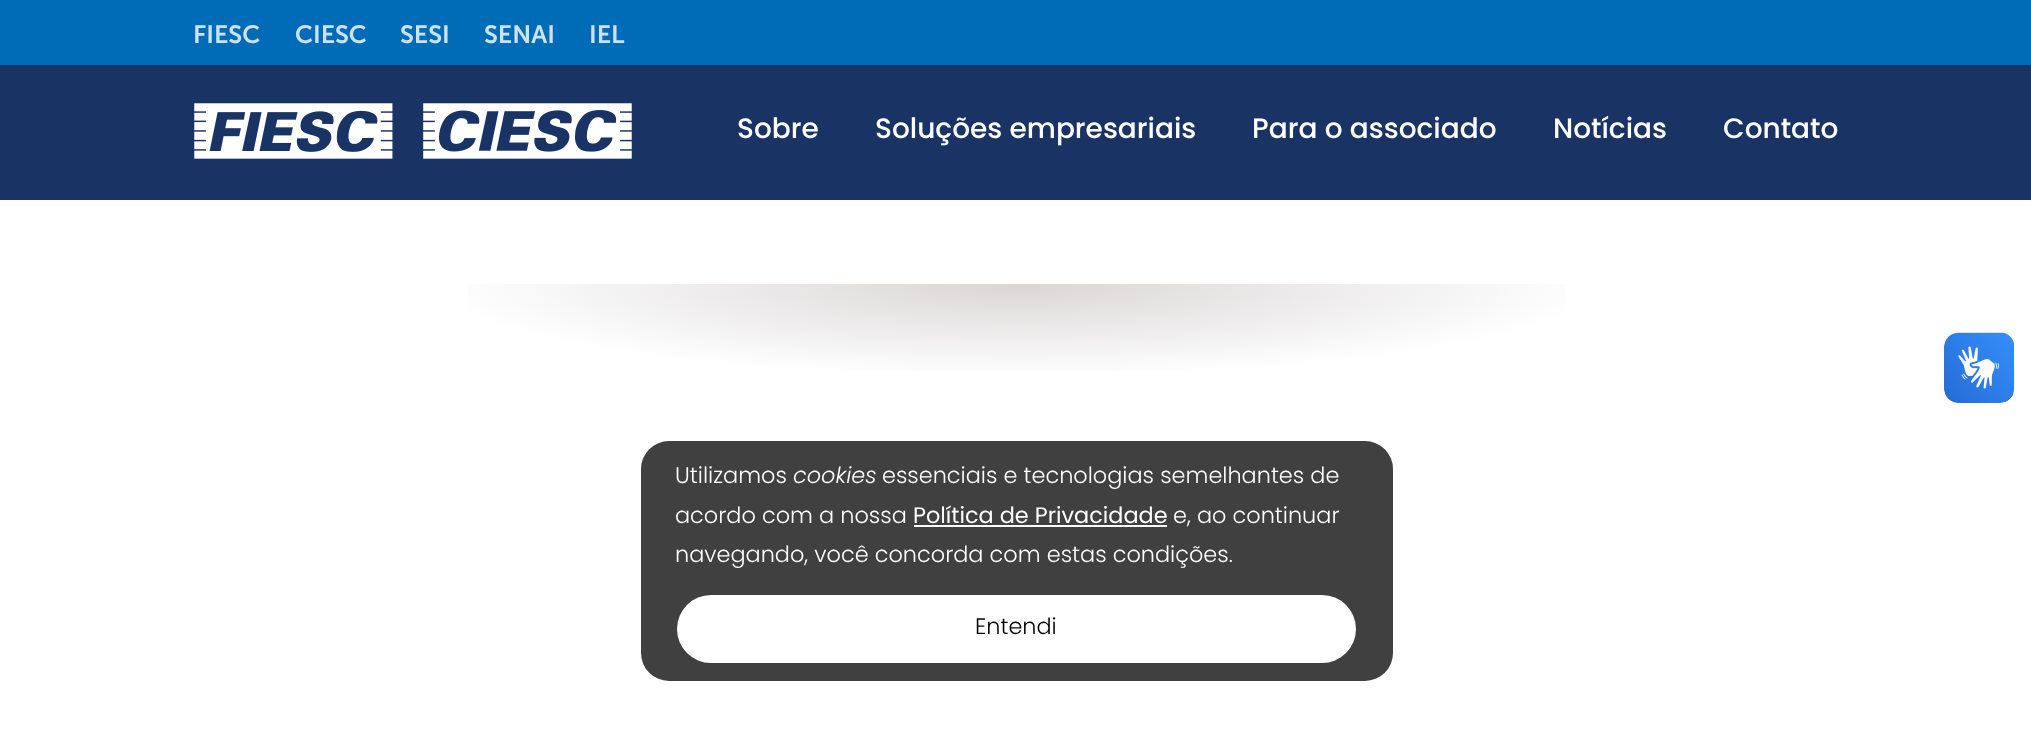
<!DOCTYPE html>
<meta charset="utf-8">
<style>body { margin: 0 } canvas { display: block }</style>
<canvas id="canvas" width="2031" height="733"></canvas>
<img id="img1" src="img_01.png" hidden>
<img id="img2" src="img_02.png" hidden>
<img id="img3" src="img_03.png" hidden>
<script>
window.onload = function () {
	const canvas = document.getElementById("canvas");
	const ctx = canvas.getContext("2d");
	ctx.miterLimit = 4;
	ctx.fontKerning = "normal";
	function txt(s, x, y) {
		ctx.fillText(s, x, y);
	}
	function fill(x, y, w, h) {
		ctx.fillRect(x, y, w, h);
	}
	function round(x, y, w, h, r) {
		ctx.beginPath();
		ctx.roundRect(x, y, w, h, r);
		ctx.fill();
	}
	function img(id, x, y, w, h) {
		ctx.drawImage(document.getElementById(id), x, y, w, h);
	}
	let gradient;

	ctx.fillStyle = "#FFFFFF";
	fill(0, 0, 2031, 733);
	ctx.fillStyle = "#1A3365";
	fill(0, 65, 2031, 135);
	img("img1", 194, 103, 438, 56);
	gradient = ctx.createRadialGradient(1017, 1775.76, 0, 1017, 1775.76, 1163);
	gradient.addColorStop(0, "#DAD6D6");
	gradient.addColorStop(0.5, "#FFFFFF");
	ctx.fillStyle = gradient;
	ctx.beginPath();
	ctx.rect(468, 284, 1098, 87);
	ctx.save();
	ctx.clip();
	ctx.scale(1, 186 / 1163);
	ctx.fillRect(0, 0, 2031, 4584);
	ctx.restore();
	ctx.font = "500 28px Poppins";
	ctx.fillStyle = "#FFFFFF";
	txt("Sobre", 737, 138);
	txt("Soluções empresariais", 875, 138);
	txt("Para o associado", 1252, 138);
	txt("Notícias", 1553, 138);
	txt("Contato", 1723, 138);
	ctx.save();
	ctx.beginPath();
	ctx.rect(0, 0, 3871, 65);
	ctx.clip();
	ctx.strokeStyle = "#006BB7";
	ctx.lineWidth = 2032;
	ctx.strokeRect(-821, -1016, 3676, 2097);
	ctx.restore();
	ctx.fillStyle = "#006BB7";
	fill(195, 0, 1644, 65);
	ctx.font = "600 25px Museo Sans";
	ctx.fillStyle = "#CCE1F1";
	txt("IEL", 589, 43);
	txt("SENAI", 484, 43);
	txt("SESI", 400, 43);
	txt("CIESC", 295, 43);
	txt("FIESC", 193, 43);
	ctx.fillStyle = "rgba(0, 0, 0, 0.75)";
	round(641, 441, 752, 240, 28);
	ctx.font = "300 22.4px Poppins";
	ctx.fillStyle = "#FFFFFF";
	txt("Utilizamos", 675, 483);
	ctx.font = "italic 300 22.4px Poppins";
	txt("cookies", 793, 483);
	ctx.font = "300 22.4px Poppins";
	txt("essenciais e tecnologias semelhantes de", 882, 483);
	txt("acordo com a nossa", 675, 523);
	ctx.font = "22.4px Poppins";
	txt("Política de Privacidade", 913, 523);
	fill(914, 525, 253, 2);
	ctx.font = "300 22.4px Poppins";
	txt("e, ao continuar", 1173, 523);
	txt("navegando, você concorda com estas condições.", 675, 562);
	round(677, 595, 679, 68, 34);
	ctx.fillStyle = "#000000";
	txt("Entendi", 975, 634);
	img("img2", 1944, 332, 71, 71);
	img("img3", 1944, 333, 70, 70);
};
</script>
